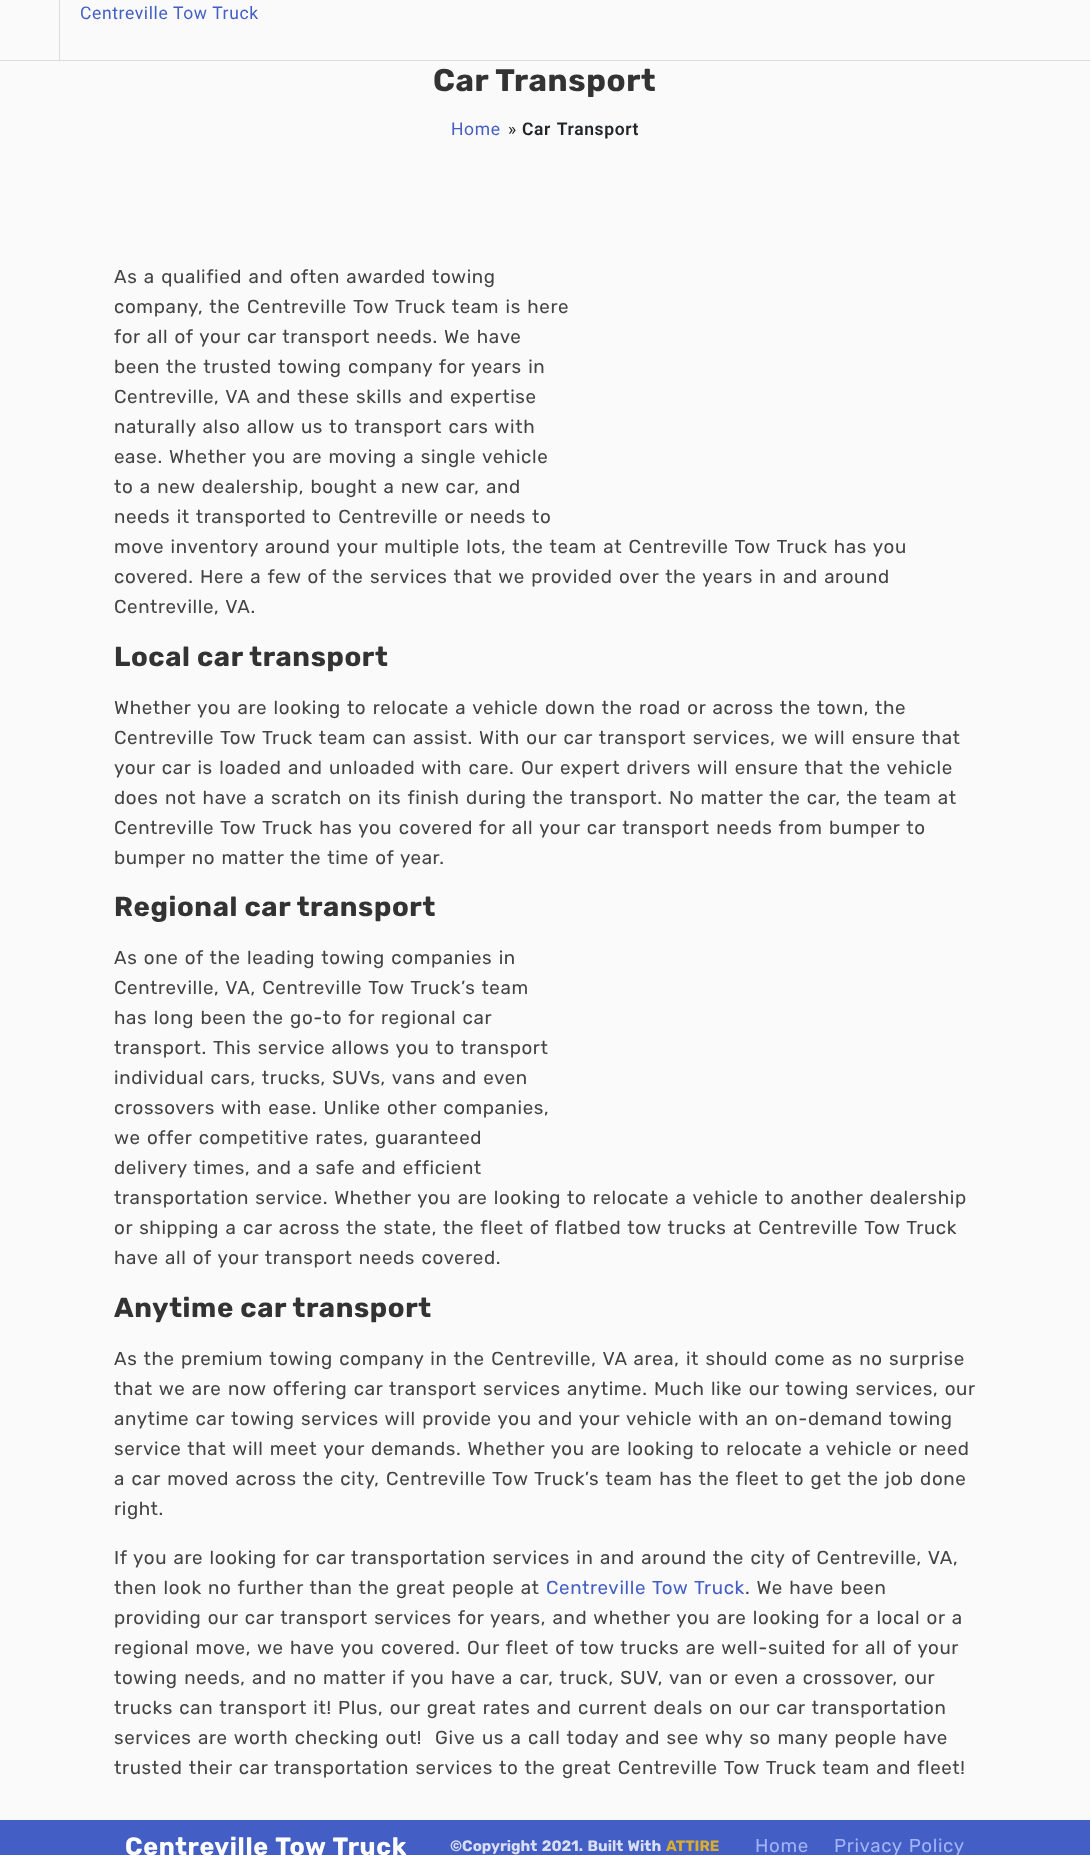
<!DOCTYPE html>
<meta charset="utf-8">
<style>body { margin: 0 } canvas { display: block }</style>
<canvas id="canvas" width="1090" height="1855"></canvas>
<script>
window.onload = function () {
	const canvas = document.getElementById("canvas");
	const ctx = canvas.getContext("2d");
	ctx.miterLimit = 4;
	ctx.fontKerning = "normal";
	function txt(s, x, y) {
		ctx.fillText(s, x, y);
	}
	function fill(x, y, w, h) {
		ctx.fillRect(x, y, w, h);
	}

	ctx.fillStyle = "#FAFAFA";
	fill(0, 0, 1090, 1855);
	ctx.fillStyle = "#DDDDDD";
	fill(0, 60, 1090, 1);
	fill(59, 0, 1, 60);
	ctx.fillStyle = "#435EC4";
	fill(0, 1820, 1090, 35);
	ctx.letterSpacing = "0.62px";
	ctx.font = "17.5px Roboto";
	txt("Centreville Tow Truck", 80, 19);
	ctx.font = "bold 31.25px Rubik";
	ctx.fillStyle = "#333333";
	txt("Car Transport", 433, 91);
	ctx.font = "17.5px Roboto";
	ctx.fillStyle = "#435EC4";
	txt("Home", 451, 135);
	ctx.fillStyle = "#212529";
	txt("»", 508, 135);
	ctx.wordSpacing = "1.25px";
	ctx.font = "600 17.5px Roboto";
	txt("Car Transport", 522, 135);
	ctx.font = "18.75px Rubik";
	ctx.fillStyle = "#444444";
	txt("As a qualified and often awarded towing", 114, 283);
	txt("company, the Centreville Tow Truck team is here", 114, 313);
	txt("for all of your car transport needs. We have", 114, 343);
	txt("been the trusted towing company for years in", 114, 373);
	txt("Centreville, VA and these skills and expertise", 114, 403);
	txt("naturally also allow us to transport cars with", 114, 433);
	txt("ease. Whether you are moving a single vehicle", 114, 463);
	txt("to a new dealership, bought a new car, and", 114, 493);
	txt("needs it transported to Centreville or needs to", 114, 523);
	txt("move inventory around your multiple lots, the team at Centreville Tow Truck has you", 114, 553);
	txt("covered. Here a few of the services that we provided over the years in and around", 114, 583);
	txt("Centreville, VA.", 114, 613);
	ctx.wordSpacing = "0px";
	ctx.font = "bold 27.5px Rubik";
	ctx.fillStyle = "#333333";
	txt("Local car transport", 114, 666);
	ctx.wordSpacing = "1.25px";
	ctx.font = "18.75px Rubik";
	ctx.fillStyle = "#444444";
	txt("Whether you are looking to relocate a vehicle down the road or across the town, the", 114, 714);
	txt("Centreville Tow Truck team can assist. With our car transport services, we will ensure that", 114, 744);
	txt("your car is loaded and unloaded with care. Our expert drivers will ensure that the vehicle", 114, 774);
	txt("does not have a scratch on its finish during the transport. No matter the car, the team at", 114, 804);
	txt("Centreville Tow Truck has you covered for all your car transport needs from bumper to", 114, 834);
	txt("bumper no matter the time of year.", 114, 864);
	ctx.wordSpacing = "0px";
	ctx.font = "bold 27.5px Rubik";
	ctx.fillStyle = "#333333";
	txt("Regional car transport", 114, 916);
	ctx.wordSpacing = "1.25px";
	ctx.font = "18.75px Rubik";
	ctx.fillStyle = "#444444";
	txt("As one of the leading towing companies in", 114, 964);
	txt("Centreville, VA, Centreville Tow Truck’s team", 114, 994);
	txt("has long been the go-to for regional car", 114, 1024);
	txt("transport. This service allows you to transport", 114, 1054);
	txt("individual cars, trucks, SUVs, vans and even", 114, 1084);
	txt("crossovers with ease. Unlike other companies,", 114, 1114);
	txt("we offer competitive rates, guaranteed", 114, 1144);
	txt("delivery times, and a safe and efficient", 114, 1174);
	txt("transportation service. Whether you are looking to relocate a vehicle to another dealership", 114, 1204);
	txt("or shipping a car across the state, the fleet of flatbed tow trucks at Centreville Tow Truck", 114, 1234);
	txt("have all of your transport needs covered.", 114, 1264);
	ctx.wordSpacing = "0px";
	ctx.font = "bold 27.5px Rubik";
	ctx.fillStyle = "#333333";
	txt("Anytime car transport", 114, 1317);
	ctx.wordSpacing = "1.25px";
	ctx.font = "18.75px Rubik";
	ctx.fillStyle = "#444444";
	txt("As the premium towing company in the Centreville, VA area, it should come as no surprise", 114, 1365);
	txt("that we are now offering car transport services anytime. Much like our towing services, our", 114, 1395);
	txt("anytime car towing services will provide you and your vehicle with an on-demand towing", 114, 1425);
	txt("service that will meet your demands. Whether you are looking to relocate a vehicle or need", 114, 1455);
	txt("a car moved across the city, Centreville Tow Truck’s team has the fleet to get the job done", 114, 1485);
	ctx.wordSpacing = "0px";
	txt("right.", 114, 1515);
	ctx.wordSpacing = "1.25px";
	txt("If you are looking for car transportation services in and around the city of Centreville, VA,", 114, 1564);
	txt("then look no further than the great people at", 114, 1594);
	ctx.fillStyle = "#435EC4";
	txt("Centreville Tow Truck", 546, 1594);
	ctx.fillStyle = "#444444";
	txt(". We have been", 745, 1594);
	txt("providing our car transport services for years, and whether you are looking for a local or a", 114, 1624);
	txt("regional move, we have you covered. Our fleet of tow trucks are well-suited for all of your", 114, 1654);
	txt("towing needs, and no matter if you have a car, truck, SUV, van or even a crossover, our", 114, 1684);
	txt("trucks can transport it! Plus, our great rates and current deals on our car transportation", 114, 1714);
	ctx.wordSpacing = "1.3px";
	txt("services are worth checking out!  Give us a call today and see why so many people have", 114, 1744);
	ctx.wordSpacing = "1.25px";
	txt("trusted their car transportation services to the great Centreville Tow Truck team and fleet!", 114, 1774);
	ctx.font = "bold 25px Rubik";
	ctx.fillStyle = "#FFFFFF";
	txt("Centreville Tow Truck", 125, 1855);
	ctx.letterSpacing = "0px";
	ctx.font = "bold 15px Rubik";
	ctx.fillStyle = "#D9DFF3";
	txt("©Copyright 2021. Built With", 450, 1851);
	ctx.wordSpacing = "0px";
	ctx.fillStyle = "#D9AD2D";
	txt("ATTIRE", 666, 1851);
	ctx.letterSpacing = "0.62px";
	ctx.font = "18.75px Rubik";
	ctx.fillStyle = "#A2B4F9";
	txt("Home", 755, 1852);
	ctx.wordSpacing = "1.25px";
	txt("Privacy Policy", 834, 1852);
};
</script>
